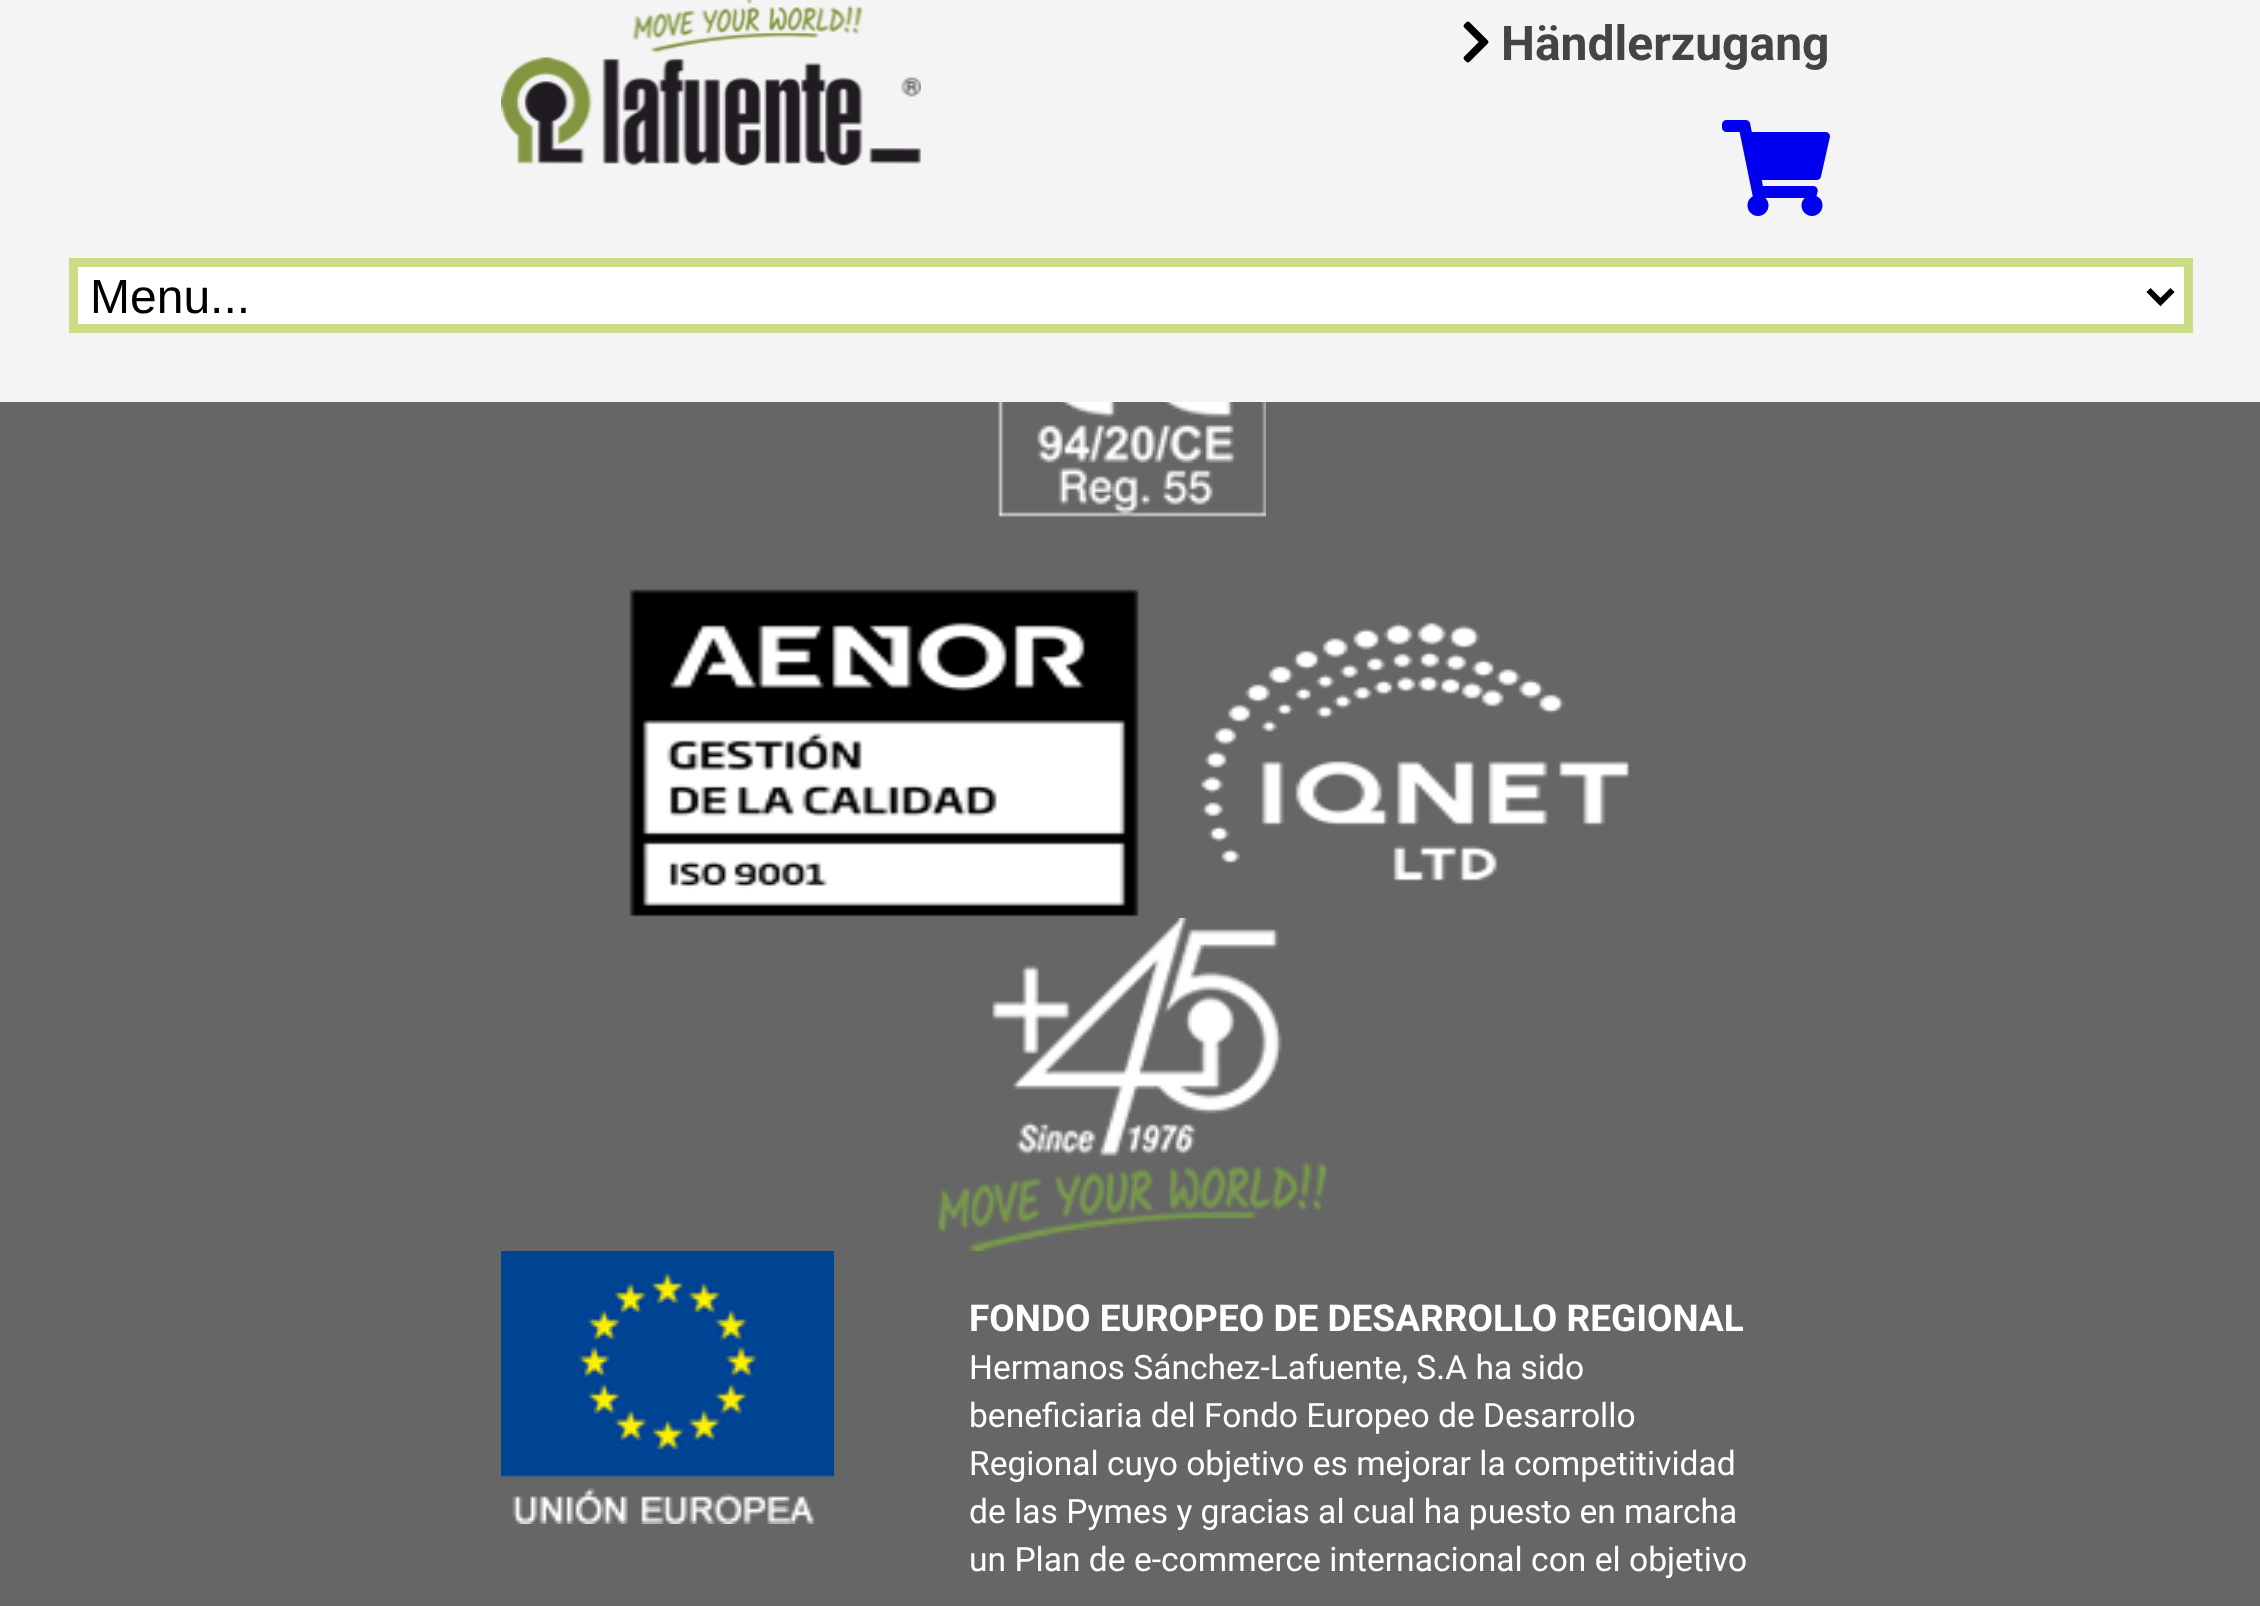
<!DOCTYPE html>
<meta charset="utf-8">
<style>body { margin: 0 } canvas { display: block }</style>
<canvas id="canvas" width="2260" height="1606"></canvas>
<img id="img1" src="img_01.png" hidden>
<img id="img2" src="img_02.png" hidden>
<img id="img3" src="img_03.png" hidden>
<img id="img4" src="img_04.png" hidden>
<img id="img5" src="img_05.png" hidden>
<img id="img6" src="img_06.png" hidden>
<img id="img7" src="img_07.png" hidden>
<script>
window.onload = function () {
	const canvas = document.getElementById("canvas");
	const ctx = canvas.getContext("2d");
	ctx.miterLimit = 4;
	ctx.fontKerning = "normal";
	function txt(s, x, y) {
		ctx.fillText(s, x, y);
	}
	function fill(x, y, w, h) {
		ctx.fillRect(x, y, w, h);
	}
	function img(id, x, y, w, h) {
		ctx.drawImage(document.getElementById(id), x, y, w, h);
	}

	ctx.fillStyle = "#666666";
	fill(0, 0, 2260, 1606);
	ctx.fillStyle = "#F4F4F4";
	fill(0, 0, 2260, 402);
	img("img1", 501, 0, 420, 166);
	img("img2", 1463, 21, 26, 42);
	img("img3", 1722, 120, 108, 96);
	ctx.fillStyle = "#FFFFFF";
	ctx.beginPath();
	ctx.rect(73.5, 262.5, 2115, 66);
	ctx.fill();
	ctx.strokeStyle = "#CADD86";
	ctx.lineWidth = 9;
	ctx.stroke();
	ctx.beginPath();
	ctx.moveTo(2148.5, 290);
	ctx.lineTo(2160.5, 302);
	ctx.lineTo(2172.5, 290);
	ctx.strokeStyle = "#000000";
	ctx.lineWidth = 6;
	ctx.stroke();
	img("img4", 998, 402, 268, 115);
	img("img5", 629, 589, 1001, 328);
	img("img6", 938, 918, 389, 333);
	img("img7", 501, 1251, 333, 273);
	ctx.font = "bold 48px Roboto";
	ctx.fillStyle = "#444444";
	txt("Händlerzugang", 1501, 60);
	ctx.font = "48px Liberation Sans";
	ctx.fillStyle = "#000000";
	txt("Menu...", 90, 313);
	ctx.font = "bold 37px Roboto";
	ctx.fillStyle = "#FFFFFF";
	txt("FONDO EUROPEO DE DESARROLLO REGIONAL", 969, 1331);
	ctx.font = "33.6px Roboto";
	txt("Hermanos Sánchez-Lafuente, S.A ha sido", 969, 1379);
	txt("beneficiaria del Fondo Europeo de Desarrollo", 969, 1427);
	txt("Regional cuyo objetivo es mejorar la competitividad", 969, 1475);
	txt("de las Pymes y gracias al cual ha puesto en marcha", 969, 1523);
	txt("un Plan de e-commerce internacional con el objetivo", 969, 1571);
};
</script>
